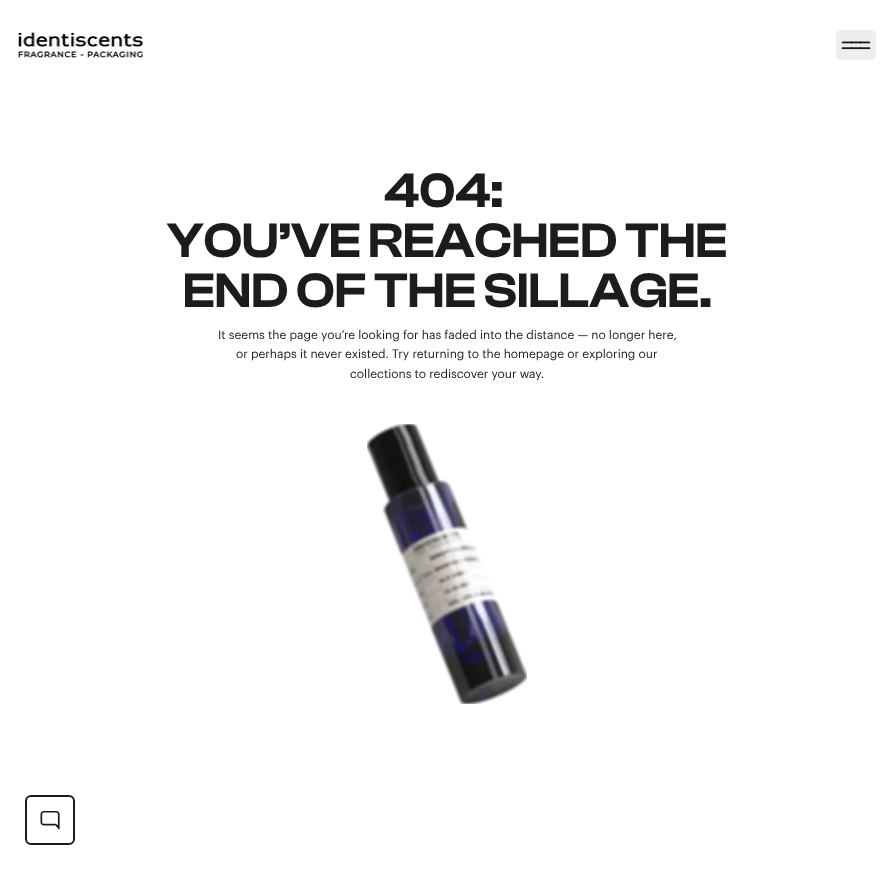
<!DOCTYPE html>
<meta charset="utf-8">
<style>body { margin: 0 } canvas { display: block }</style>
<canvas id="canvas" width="894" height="870"></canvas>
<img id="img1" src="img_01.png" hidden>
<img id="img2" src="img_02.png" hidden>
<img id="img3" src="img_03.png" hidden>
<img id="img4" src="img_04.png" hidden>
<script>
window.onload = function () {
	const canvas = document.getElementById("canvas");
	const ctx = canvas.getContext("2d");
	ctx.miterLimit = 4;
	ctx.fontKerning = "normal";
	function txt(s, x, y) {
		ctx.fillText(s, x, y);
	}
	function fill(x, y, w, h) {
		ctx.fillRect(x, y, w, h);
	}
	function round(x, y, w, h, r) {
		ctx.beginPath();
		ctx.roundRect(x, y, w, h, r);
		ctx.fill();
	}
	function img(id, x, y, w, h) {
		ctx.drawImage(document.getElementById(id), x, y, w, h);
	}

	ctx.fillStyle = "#FFFFFF";
	fill(0, 0, 894, 870);
	img("img1", 18, 32, 125, 26);
	ctx.fillStyle = "#EEEEEE";
	round(836, 30, 40, 30, 5);
	img("img2", 841, 41, 30, 9);
	ctx.beginPath();
	ctx.roundRect(26, 796, 48, 48, 5);
	ctx.strokeStyle = "#1B1C1D";
	ctx.lineWidth = 2;
	ctx.stroke();
	img("img3", 40, 811, 20, 19);
	img("img4", 367, 424, 160, 280);
	ctx.font = "600 50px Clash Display";
	ctx.fillStyle = "#1B1C1D";
	txt("404:", 384, 207);
	txt("YOU’VE REACHED THE", 167, 257);
	txt("END OF THE SILLAGE.", 183, 307);
	ctx.font = "12px Graphik";
	txt("It seems the page you’re looking for has faded into the distance — no longer here,", 218, 339);
	txt("or perhaps it never existed. Try returning to the homepage or exploring our", 236, 358);
	txt("collections to rediscover your way.", 350, 378);
};
</script>
